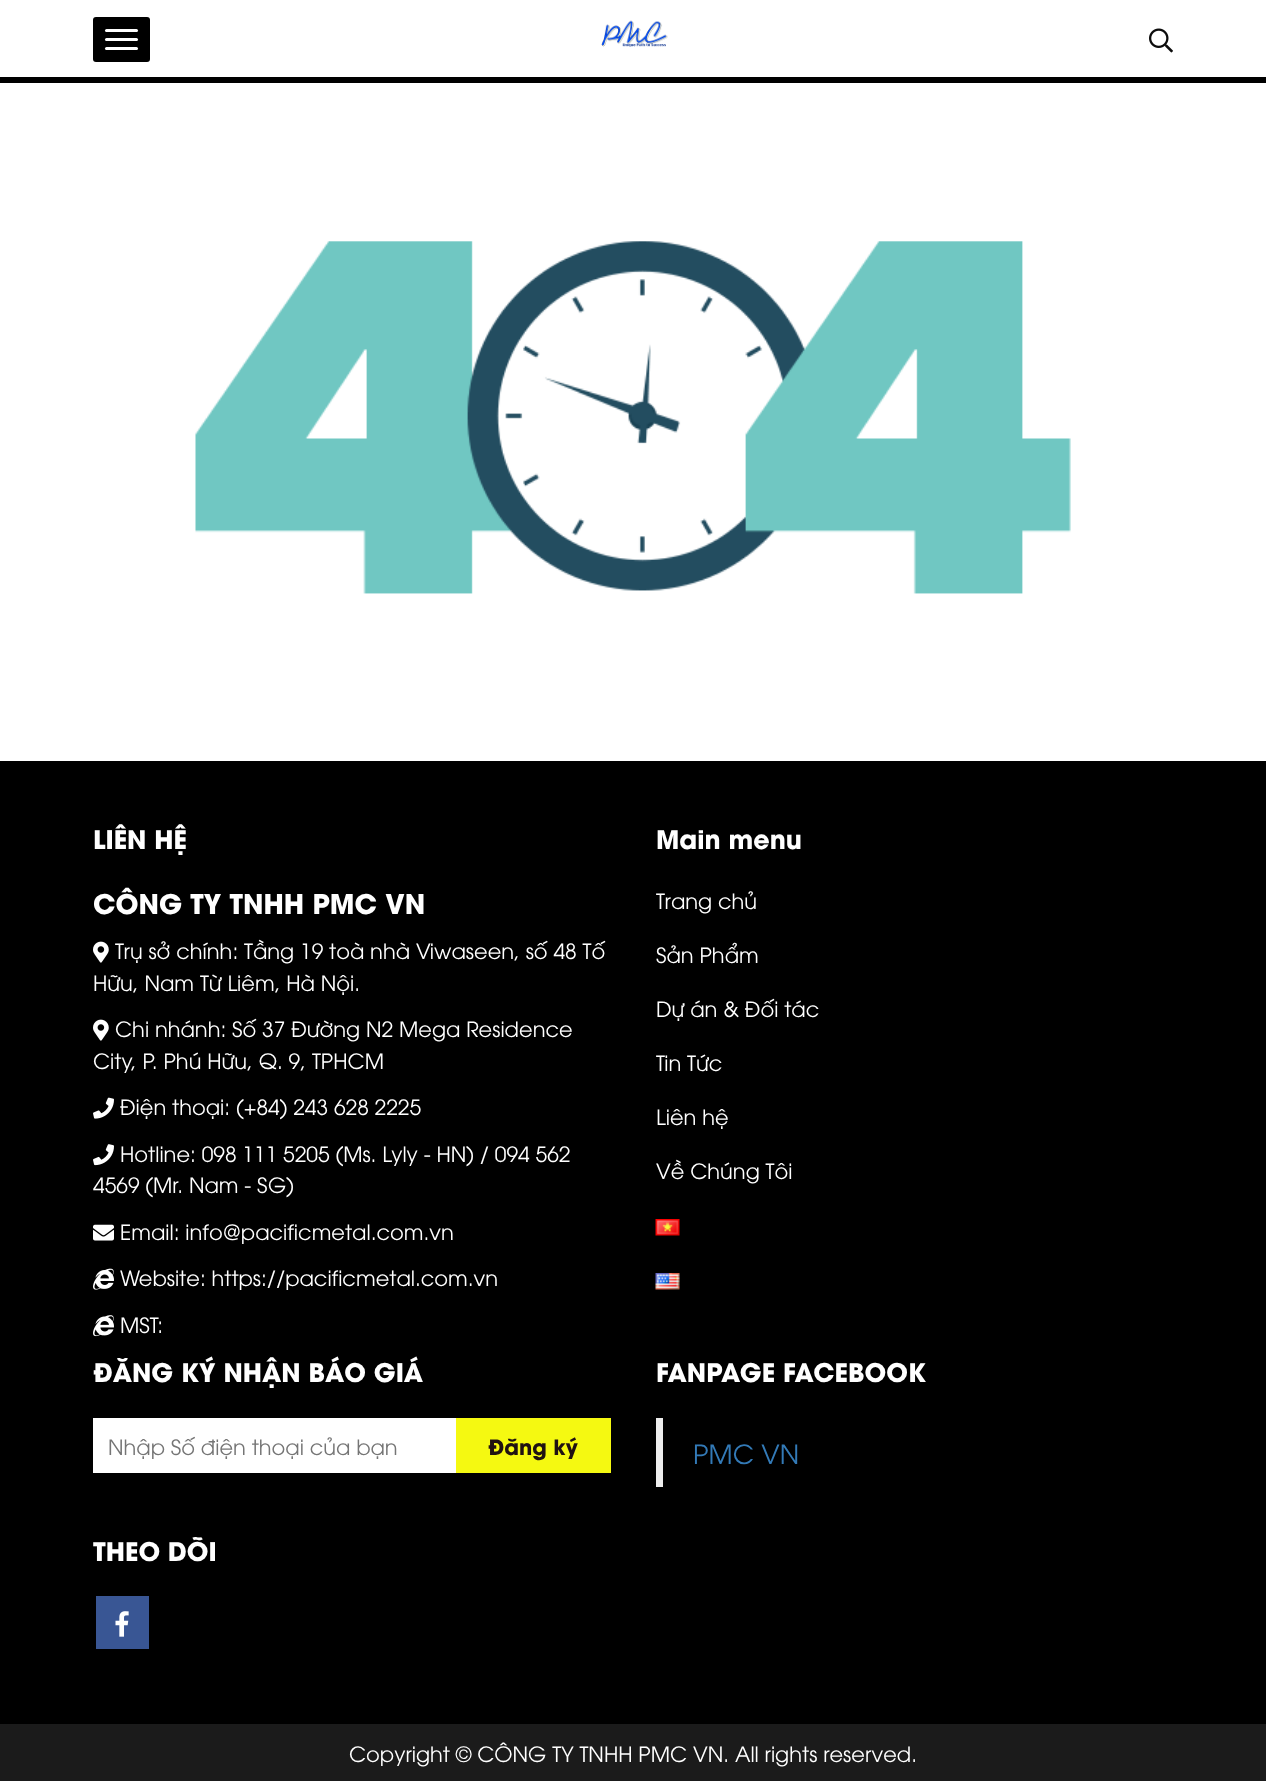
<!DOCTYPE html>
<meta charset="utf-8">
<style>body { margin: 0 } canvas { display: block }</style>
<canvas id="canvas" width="1266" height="1781"></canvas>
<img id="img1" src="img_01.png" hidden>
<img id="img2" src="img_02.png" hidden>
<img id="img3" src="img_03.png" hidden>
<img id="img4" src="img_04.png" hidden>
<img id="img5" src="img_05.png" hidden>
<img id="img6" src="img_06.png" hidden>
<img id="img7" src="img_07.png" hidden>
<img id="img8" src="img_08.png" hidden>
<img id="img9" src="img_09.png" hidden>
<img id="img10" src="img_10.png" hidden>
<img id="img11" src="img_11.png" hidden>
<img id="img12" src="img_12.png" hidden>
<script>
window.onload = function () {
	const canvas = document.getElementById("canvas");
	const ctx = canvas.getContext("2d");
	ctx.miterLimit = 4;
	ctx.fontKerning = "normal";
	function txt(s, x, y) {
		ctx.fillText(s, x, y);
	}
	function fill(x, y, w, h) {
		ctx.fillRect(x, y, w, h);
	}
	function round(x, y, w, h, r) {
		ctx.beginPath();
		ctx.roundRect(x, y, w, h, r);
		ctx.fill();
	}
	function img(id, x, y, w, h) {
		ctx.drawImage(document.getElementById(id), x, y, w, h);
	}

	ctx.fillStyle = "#FFFFFF";
	fill(0, 0, 1266, 1781);
	ctx.fillStyle = "#000000";
	fill(0, 77, 1266, 6);
	round(93, 17, 57, 45, 3);
	ctx.fillStyle = "#FFFFFF";
	round(105, 29, 33, 3, 1.5);
	round(105, 38, 33, 3, 1.5);
	round(105, 47, 33, 3, 1.5);
	img("img1", 601, 20, 67, 27);
	img("img2", 1149, 28, 24, 25);
	img("img3", 195, 241, 876, 353);
	ctx.fillStyle = "#000000";
	fill(0, 761, 1266, 963);
	img("img4", 93, 941, 16, 22);
	img("img4", 93, 1019, 16, 22);
	img("img5", 93, 1097, 21, 22);
	img("img6", 93, 1144, 21, 22);
	img("img7", 93, 1224, 21, 17);
	img("img8", 93, 1268, 21, 22);
	img("img9", 93, 1315, 21, 22);
	img("img10", 655, 1219, 25, 17);
	img("img11", 655, 1273, 25, 17);
	ctx.fillStyle = "#FFFFFF";
	fill(93, 1418, 363, 55);
	ctx.fillStyle = "#F5F911";
	fill(456, 1418, 155, 55);
	ctx.fillStyle = "#395694";
	fill(96, 1596, 53, 53);
	img("img12", 115, 1611, 14, 26);
	ctx.fillStyle = "#EEEEEE";
	fill(656, 1418, 7, 69);
	ctx.fillStyle = "#1B1B1B";
	fill(0, 1724, 1266, 57);
	ctx.font = "bold 25.5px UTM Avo";
	ctx.fillStyle = "#FFFFFF";
	txt("LIÊN HỆ", 93, 849);
	ctx.font = "bold 27px UTM Avo";
	txt("CÔNG TY TNHH PMC VN", 93, 914);
	ctx.font = "21px UTM Avo";
	txt("Trụ sở chính: Tầng 19 toà nhà Viwaseen, số 48 Tố", 115, 959);
	txt("Hữu, Nam Từ Liêm, Hà Nội.", 93, 991);
	txt("Chi nhánh: Số 37 Đường N2 Mega Residence", 115, 1037);
	txt("City, P. Phú Hữu, Q. 9, TPHCM", 93, 1069);
	txt("Điện thoại: (+84) 243 628 2225", 120, 1115);
	txt("Hotline: 098 111 5205 (Ms. Lyly - HN) / 094 562", 120, 1162);
	txt("4569 (Mr. Nam - SG)", 93, 1193);
	txt("Email: info@pacificmetal.com.vn", 120, 1240);
	txt("Website: https://pacificmetal.com.vn", 120, 1286);
	txt("MST:", 120, 1333);
	ctx.font = "bold 25.5px UTM Avo";
	txt("Main menu", 656, 849);
	ctx.font = "21px UTM Avo";
	txt("Trang chủ", 656, 909);
	txt("Sản Phẩm", 656, 963);
	txt("Dự án & Đối tác", 656, 1017);
	txt("Tin Tức", 656, 1071);
	txt("Liên hệ", 656, 1125);
	txt("Về Chúng Tôi", 656, 1179);
	ctx.font = "bold 25.5px UTM Avo";
	txt("ĐĂNG KÝ NHẬN BÁO GIÁ", 93, 1382);
	ctx.font = "21px UTM Avo";
	ctx.fillStyle = "#757575";
	txt("Nhập Số điện thoại của bạn", 108, 1455);
	ctx.font = "bold 21px UTM Avo";
	ctx.fillStyle = "#201212";
	txt("Đăng ký", 488, 1455);
	ctx.font = "bold 25.5px UTM Avo";
	ctx.fillStyle = "#FFFFFF";
	txt("THEO DÕI", 93, 1561);
	txt("FANPAGE FACEBOOK", 656, 1382);
	ctx.font = "26.25px UTM Avo";
	ctx.fillStyle = "#337AB7";
	txt("PMC VN", 693, 1464);
	ctx.font = "21px UTM Avo";
	ctx.fillStyle = "#FFFFFF";
	txt("Copyright © CÔNG TY TNHH PMC VN. All rights reserved.", 349, 1762);
};
</script>
